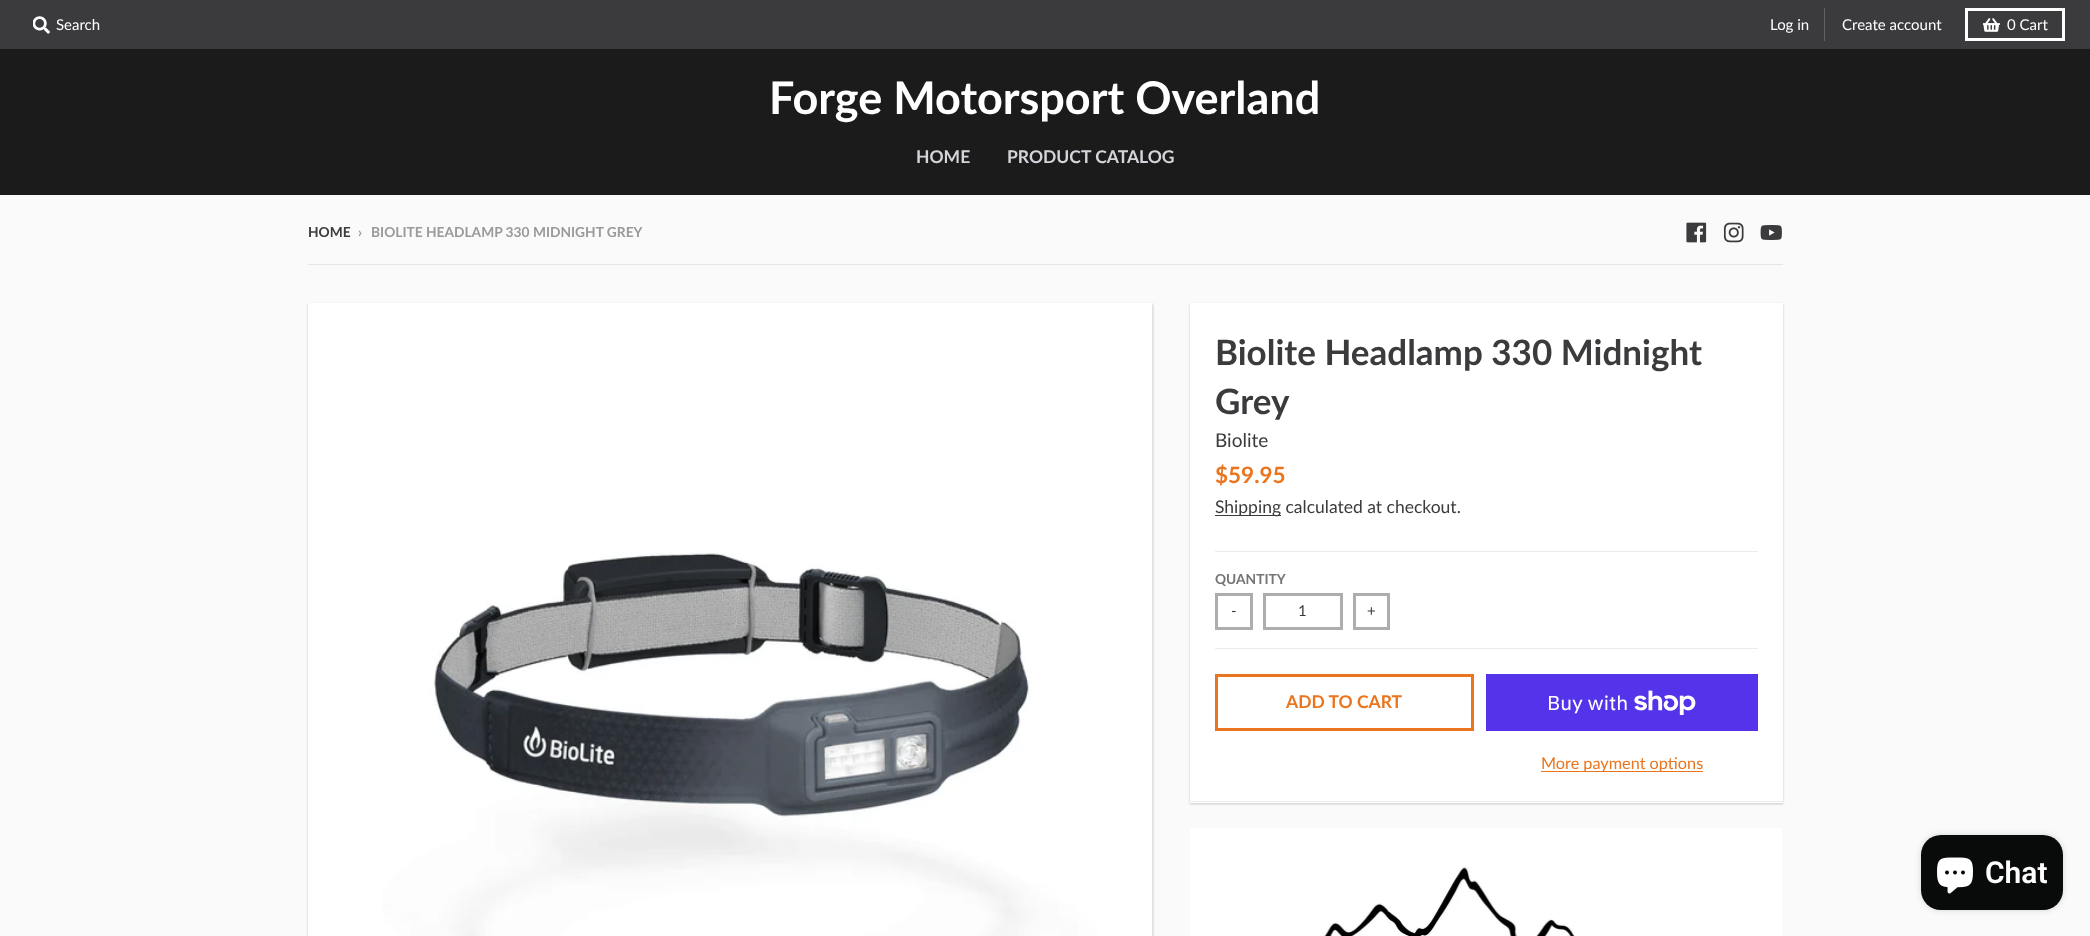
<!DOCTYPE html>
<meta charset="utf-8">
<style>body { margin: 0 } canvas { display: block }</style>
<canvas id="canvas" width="2090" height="936"></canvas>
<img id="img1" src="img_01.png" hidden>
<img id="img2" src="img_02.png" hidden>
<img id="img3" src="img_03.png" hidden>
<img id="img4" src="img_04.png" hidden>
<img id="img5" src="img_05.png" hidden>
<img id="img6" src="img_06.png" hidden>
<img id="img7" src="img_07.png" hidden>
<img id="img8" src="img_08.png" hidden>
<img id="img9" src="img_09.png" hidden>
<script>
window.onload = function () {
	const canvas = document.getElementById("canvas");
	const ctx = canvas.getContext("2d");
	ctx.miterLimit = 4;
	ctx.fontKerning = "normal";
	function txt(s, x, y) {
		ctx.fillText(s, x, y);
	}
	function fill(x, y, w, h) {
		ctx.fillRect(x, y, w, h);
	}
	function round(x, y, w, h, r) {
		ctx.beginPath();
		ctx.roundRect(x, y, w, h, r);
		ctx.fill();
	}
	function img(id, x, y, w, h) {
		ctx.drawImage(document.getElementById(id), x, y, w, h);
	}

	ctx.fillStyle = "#FAFAFA";
	fill(0, 0, 2090, 936);
	ctx.fillStyle = "#3B3A3D";
	fill(0, 0, 2090, 49);
	img("img1", 33, 16, 17, 18);
	ctx.fillStyle = "#626163";
	fill(1824, 8, 1, 33);
	ctx.strokeStyle = "#FFFFFF";
	ctx.lineWidth = 3;
	ctx.strokeRect(1966.5, 9.5, 97, 30);
	img("img2", 1983, 18, 17, 14);
	ctx.fillStyle = "#1B1B1B";
	fill(0, 49, 2090, 146);
	img("img3", 1686, 222, 21, 21);
	img("img4", 1723, 222, 21, 21);
	img("img5", 1760, 225, 22, 15);
	ctx.fillStyle = "#E6E6E7";
	fill(308, 264, 1475, 1);
	ctx.fillStyle = "rgba(0, 0, 0, 0.2)";
	ctx.filter = "blur(1px)";
	ctx.beginPath();
	ctx.rect(308, 304, 845, 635);
	ctx.fill();
	ctx.filter = "none";
	img("img6", 308, 303, 845, 633);
	ctx.filter = "blur(1px)";
	ctx.beginPath();
	ctx.rect(1190, 304, 593, 500);
	ctx.fill();
	ctx.filter = "none";
	ctx.fillStyle = "#FFFFFF";
	fill(1190, 303, 593, 500);
	ctx.fillStyle = "#EBEBEB";
	fill(1190, 801, 593, 1);
	fill(1215, 551, 543, 1);
	ctx.fillStyle = "#3B3A3D";
	fill(1215, 515, 66, 1);
	ctx.fillStyle = "#EBEBEB";
	fill(1215, 648, 543, 1);
	ctx.strokeStyle = "#ADADAE";
	ctx.strokeRect(1216.5, 594.5, 35, 34);
	ctx.strokeRect(1264.5, 594.5, 77, 34);
	ctx.strokeRect(1354.5, 594.5, 34, 34);
	ctx.strokeStyle = "#E9751E";
	ctx.strokeRect(1216.5, 675.5, 256, 54);
	ctx.fillStyle = "#5433EB";
	fill(1486, 674, 272, 57);
	img("img7", 1634, 690, 62, 25);
	ctx.fillStyle = "#E9751E";
	fill(1541, 771, 162, 1);
	img("img8", 1190, 828, 592, 108);
	ctx.fillStyle = "rgba(0, 0, 0, 0.15)";
	ctx.filter = "blur(3px)";
	ctx.beginPath();
	ctx.roundRect(1921, 835, 142, 75, 20);
	ctx.fill();
	ctx.filter = "none";
	ctx.fillStyle = "#090A0A";
	round(1921, 835, 142, 75, 20);
	img("img9", 1937, 857, 36, 37);
	ctx.font = "15px Lato";
	ctx.fillStyle = "#FFFFFF";
	txt("Search", 56, 30);
	txt("Log in", 1770, 30);
	txt("Create account", 1842, 30);
	txt("0 Cart", 2007, 30);
	ctx.font = "bold 45px Lato";
	txt("Forge Motorsport Overland", 769, 114);
	ctx.font = "bold 17.5px Lato";
	ctx.fillStyle = "#D6D4DA";
	txt("HOME", 916, 163);
	txt("PRODUCT CATALOG", 1007, 163);
	ctx.font = "bold 13.75px Lato";
	ctx.fillStyle = "#3B3A3D";
	txt("HOME", 308, 237);
	ctx.fillStyle = "#9A9A9B";
	txt("›", 358, 237);
	txt("BIOLITE HEADLAMP 330 MIDNIGHT GREY", 371, 237);
	ctx.font = "bold 35px Lato";
	ctx.fillStyle = "#3B3A3D";
	txt("Biolite Headlamp 330 Midnight", 1215, 365);
	txt("Grey", 1215, 414);
	ctx.font = "19px Lato";
	txt("Biolite", 1215, 447);
	ctx.font = "bold 22.5px Lato";
	ctx.fillStyle = "#E9751E";
	txt("$59.95", 1215, 483);
	ctx.font = "17.5px Lato";
	ctx.fillStyle = "#3B3A3D";
	txt("Shipping calculated at checkout.", 1215, 513);
	ctx.font = "bold 13.75px Lato";
	ctx.fillStyle = "#747375";
	txt("QUANTITY", 1215, 584);
	ctx.font = "15px Lato";
	ctx.fillStyle = "#3B3A3D";
	txt("-", 1231, 616);
	txt("1", 1298, 616);
	txt("+", 1367, 616);
	ctx.font = "bold 17.5px Lato";
	ctx.fillStyle = "#E9751E";
	txt("ADD TO CART", 1286, 708);
	ctx.font = "20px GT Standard";
	ctx.fillStyle = "#FFFFFF";
	txt("Buy with", 1547, 710);
	ctx.font = "16.25px Lato";
	ctx.fillStyle = "#E9751E";
	txt("More payment options", 1541, 769);
	ctx.font = "600 30px Roboto";
	ctx.fillStyle = "#FFFFFF";
	txt("Chat", 1985, 883);
};
</script>
